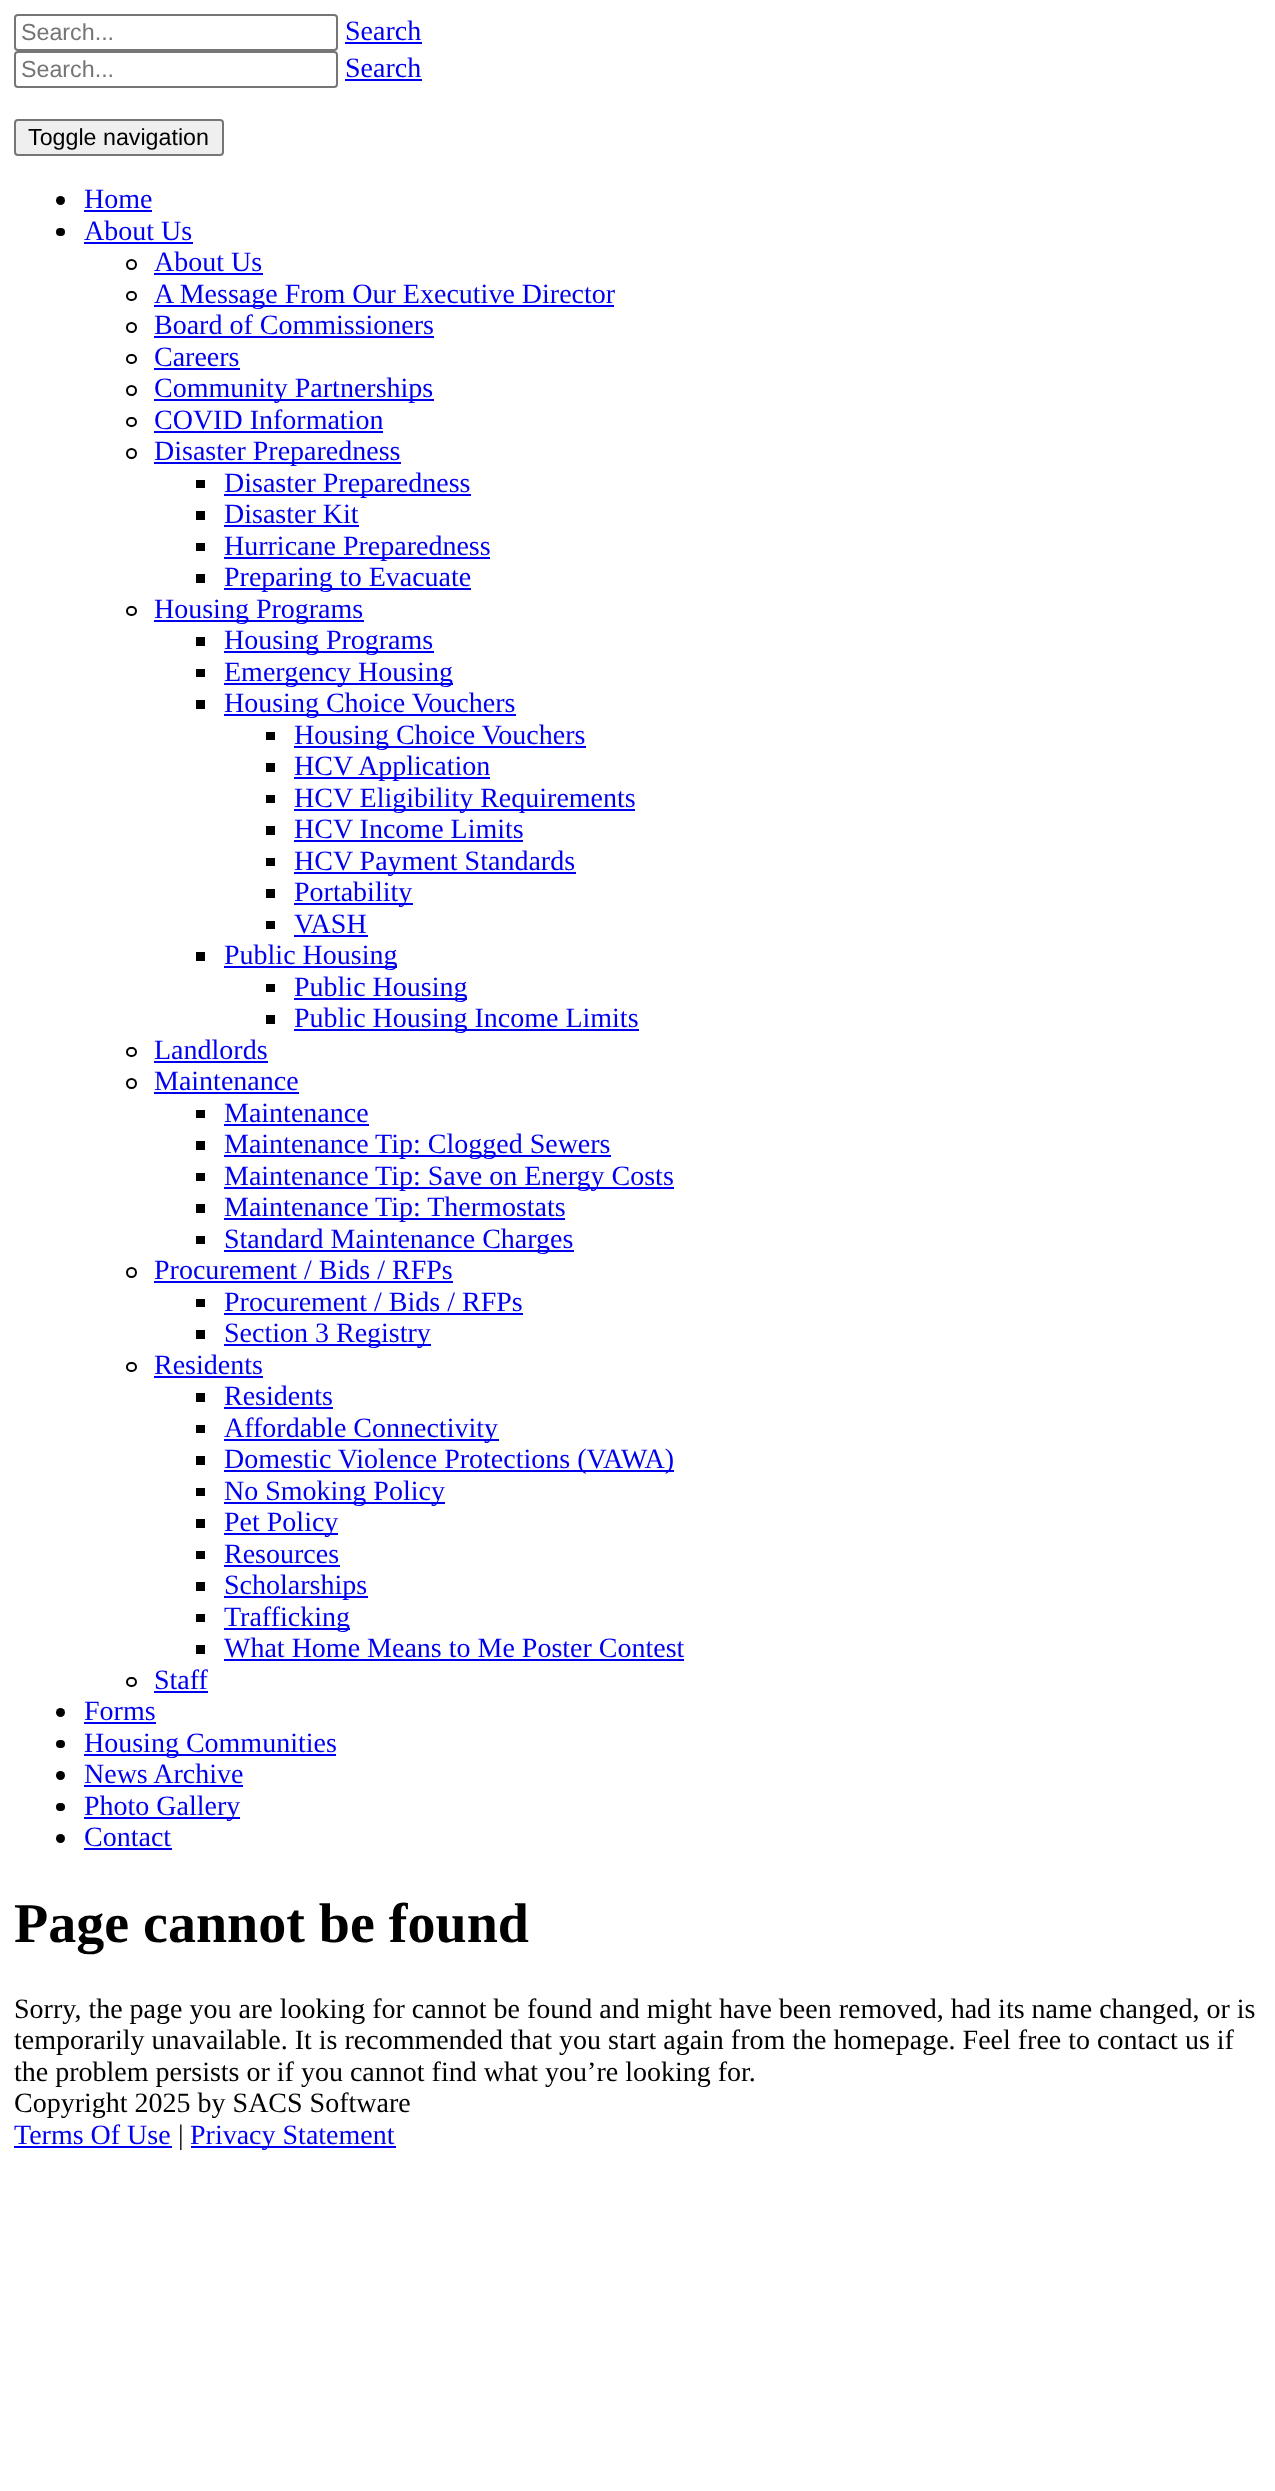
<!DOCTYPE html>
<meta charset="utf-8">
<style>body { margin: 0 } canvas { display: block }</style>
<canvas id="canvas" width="1275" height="2491"></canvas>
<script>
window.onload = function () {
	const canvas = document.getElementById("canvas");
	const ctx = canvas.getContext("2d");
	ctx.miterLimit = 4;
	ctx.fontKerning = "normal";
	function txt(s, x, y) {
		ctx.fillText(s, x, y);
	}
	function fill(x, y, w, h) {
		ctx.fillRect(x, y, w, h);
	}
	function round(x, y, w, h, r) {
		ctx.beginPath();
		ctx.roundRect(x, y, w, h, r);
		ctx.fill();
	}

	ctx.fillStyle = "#FFFFFF";
	fill(0, 0, 1275, 2491);
	ctx.beginPath();
	ctx.roundRect(15, 15, 322, 35, 3);
	ctx.strokeStyle = "#767676";
	ctx.lineWidth = 2;
	ctx.stroke();
	ctx.fillStyle = "#0000EE";
	fill(345, 42, 77, 2);
	ctx.beginPath();
	ctx.roundRect(15, 52, 322, 35, 3);
	ctx.stroke();
	fill(345, 79, 77, 2);
	ctx.fillStyle = "#EFEFEF";
	ctx.beginPath();
	ctx.roundRect(15, 120, 208, 35, 3);
	ctx.fill();
	ctx.stroke();
	ctx.fillStyle = "#000000";
	ctx.beginPath();
	ctx.arc(60.5, 200.5, 4.5, 0, Math.PI * 2);
	ctx.fill();
	ctx.fillStyle = "#0000EE";
	fill(84, 210, 68, 2);
	ctx.fillStyle = "#000000";
	round(56, 228, 9, 8, 4);
	ctx.fillStyle = "#0000EE";
	fill(84, 242, 109, 2);
	ctx.beginPath();
	ctx.arc(131.5, 264.5, 4.5, 0, Math.PI * 2);
	ctx.strokeStyle = "#000000";
	ctx.stroke();
	fill(154, 273, 109, 2);
	ctx.beginPath();
	ctx.roundRect(127, 292, 9, 8, 4);
	ctx.stroke();
	fill(154, 305, 460, 2);
	ctx.beginPath();
	ctx.arc(131.5, 327.5, 4.5, 0, Math.PI * 2);
	ctx.stroke();
	fill(154, 336, 280, 2);
	ctx.beginPath();
	ctx.roundRect(127, 355, 9, 8, 4);
	ctx.stroke();
	fill(154, 368, 86, 2);
	ctx.beginPath();
	ctx.arc(131.5, 390.5, 4.5, 0, Math.PI * 2);
	ctx.stroke();
	fill(154, 399, 280, 2);
	ctx.beginPath();
	ctx.roundRect(127, 418, 9, 8, 4);
	ctx.stroke();
	fill(154, 431, 229, 2);
	ctx.beginPath();
	ctx.arc(131.5, 453.5, 4.5, 0, Math.PI * 2);
	ctx.stroke();
	fill(154, 462, 247, 2);
	ctx.fillStyle = "#000000";
	fill(196, 480, 9, 8);
	ctx.fillStyle = "#0000EE";
	fill(224, 494, 247, 2);
	ctx.fillStyle = "#000000";
	fill(196, 511, 9, 9);
	ctx.fillStyle = "#0000EE";
	fill(224, 525, 135, 2);
	ctx.fillStyle = "#000000";
	fill(196, 543, 9, 8);
	ctx.fillStyle = "#0000EE";
	fill(224, 557, 266, 2);
	ctx.fillStyle = "#000000";
	fill(196, 574, 9, 9);
	ctx.fillStyle = "#0000EE";
	fill(224, 588, 247, 2);
	ctx.beginPath();
	ctx.roundRect(127, 607, 9, 8, 4);
	ctx.stroke();
	fill(154, 620, 210, 2);
	ctx.fillStyle = "#000000";
	fill(196, 637, 9, 9);
	ctx.fillStyle = "#0000EE";
	fill(224, 651, 210, 2);
	ctx.fillStyle = "#000000";
	fill(196, 669, 9, 8);
	ctx.fillStyle = "#0000EE";
	fill(224, 683, 229, 2);
	ctx.fillStyle = "#000000";
	fill(196, 700, 9, 9);
	ctx.fillStyle = "#0000EE";
	fill(224, 714, 292, 2);
	ctx.fillStyle = "#000000";
	fill(266, 732, 9, 8);
	ctx.fillStyle = "#0000EE";
	fill(294, 746, 292, 2);
	ctx.fillStyle = "#000000";
	fill(266, 763, 9, 9);
	ctx.fillStyle = "#0000EE";
	fill(294, 777, 196, 2);
	ctx.fillStyle = "#000000";
	fill(266, 795, 9, 8);
	ctx.fillStyle = "#0000EE";
	fill(294, 809, 341, 2);
	ctx.fillStyle = "#000000";
	fill(266, 826, 9, 9);
	ctx.fillStyle = "#0000EE";
	fill(294, 840, 229, 2);
	ctx.fillStyle = "#000000";
	fill(266, 858, 9, 8);
	ctx.fillStyle = "#0000EE";
	fill(294, 872, 282, 2);
	ctx.fillStyle = "#000000";
	fill(266, 889, 9, 9);
	ctx.fillStyle = "#0000EE";
	fill(294, 903, 119, 2);
	ctx.fillStyle = "#000000";
	fill(266, 921, 9, 8);
	ctx.fillStyle = "#0000EE";
	fill(294, 935, 74, 2);
	ctx.fillStyle = "#000000";
	fill(196, 952, 9, 9);
	ctx.fillStyle = "#0000EE";
	fill(224, 966, 173, 2);
	ctx.fillStyle = "#000000";
	fill(266, 984, 9, 8);
	ctx.fillStyle = "#0000EE";
	fill(294, 998, 173, 2);
	ctx.fillStyle = "#000000";
	fill(266, 1015, 9, 9);
	ctx.fillStyle = "#0000EE";
	fill(294, 1029, 345, 2);
	ctx.beginPath();
	ctx.roundRect(127, 1048, 9, 8, 4);
	ctx.stroke();
	fill(154, 1061, 114, 2);
	ctx.beginPath();
	ctx.arc(131.5, 1083.5, 4.5, 0, Math.PI * 2);
	ctx.stroke();
	fill(154, 1092, 145, 2);
	ctx.fillStyle = "#000000";
	fill(196, 1110, 9, 8);
	ctx.fillStyle = "#0000EE";
	fill(224, 1124, 145, 2);
	ctx.fillStyle = "#000000";
	fill(196, 1141, 9, 9);
	ctx.fillStyle = "#0000EE";
	fill(224, 1155, 387, 2);
	ctx.fillStyle = "#000000";
	fill(196, 1173, 9, 8);
	ctx.fillStyle = "#0000EE";
	fill(224, 1187, 450, 2);
	ctx.fillStyle = "#000000";
	fill(196, 1204, 9, 9);
	ctx.fillStyle = "#0000EE";
	fill(224, 1218, 341, 2);
	ctx.fillStyle = "#000000";
	fill(196, 1236, 9, 8);
	ctx.fillStyle = "#0000EE";
	fill(224, 1250, 350, 2);
	ctx.beginPath();
	ctx.arc(131.5, 1272.5, 4.5, 0, Math.PI * 2);
	ctx.stroke();
	fill(154, 1281, 299, 2);
	ctx.fillStyle = "#000000";
	fill(196, 1299, 9, 8);
	ctx.fillStyle = "#0000EE";
	fill(224, 1313, 299, 2);
	ctx.fillStyle = "#000000";
	fill(196, 1330, 9, 9);
	ctx.fillStyle = "#0000EE";
	fill(224, 1344, 207, 2);
	ctx.beginPath();
	ctx.roundRect(127, 1363, 9, 8, 4);
	ctx.stroke();
	fill(154, 1376, 109, 2);
	ctx.fillStyle = "#000000";
	fill(196, 1393, 9, 9);
	ctx.fillStyle = "#0000EE";
	fill(224, 1407, 109, 2);
	ctx.fillStyle = "#000000";
	fill(196, 1425, 9, 8);
	ctx.fillStyle = "#0000EE";
	fill(224, 1439, 275, 2);
	ctx.fillStyle = "#000000";
	fill(196, 1456, 9, 9);
	ctx.fillStyle = "#0000EE";
	fill(224, 1470, 450, 2);
	ctx.fillStyle = "#000000";
	fill(196, 1488, 9, 8);
	ctx.fillStyle = "#0000EE";
	fill(224, 1502, 221, 2);
	ctx.fillStyle = "#000000";
	fill(196, 1519, 9, 9);
	ctx.fillStyle = "#0000EE";
	fill(224, 1533, 114, 2);
	ctx.fillStyle = "#000000";
	fill(196, 1551, 9, 8);
	ctx.fillStyle = "#0000EE";
	fill(224, 1565, 116, 2);
	ctx.fillStyle = "#000000";
	fill(196, 1582, 9, 9);
	ctx.fillStyle = "#0000EE";
	fill(224, 1596, 144, 2);
	ctx.fillStyle = "#000000";
	fill(196, 1614, 9, 8);
	ctx.fillStyle = "#0000EE";
	fill(224, 1628, 126, 2);
	ctx.fillStyle = "#000000";
	fill(196, 1645, 9, 9);
	ctx.fillStyle = "#0000EE";
	fill(224, 1659, 460, 2);
	ctx.beginPath();
	ctx.roundRect(127, 1678, 9, 8, 4);
	ctx.stroke();
	fill(154, 1691, 54, 2);
	ctx.fillStyle = "#000000";
	ctx.beginPath();
	ctx.arc(60.5, 1712.5, 4.5, 0, Math.PI * 2);
	ctx.fill();
	ctx.fillStyle = "#0000EE";
	fill(84, 1722, 72, 2);
	ctx.fillStyle = "#000000";
	round(56, 1740, 9, 8, 4);
	ctx.fillStyle = "#0000EE";
	fill(84, 1754, 252, 2);
	ctx.fillStyle = "#000000";
	ctx.beginPath();
	ctx.arc(60.5, 1775.5, 4.5, 0, Math.PI * 2);
	ctx.fill();
	ctx.fillStyle = "#0000EE";
	fill(84, 1785, 159, 2);
	ctx.fillStyle = "#000000";
	round(56, 1803, 9, 8, 4);
	ctx.fillStyle = "#0000EE";
	fill(84, 1817, 156, 2);
	ctx.fillStyle = "#000000";
	ctx.beginPath();
	ctx.arc(60.5, 1838.5, 4.5, 0, Math.PI * 2);
	ctx.fill();
	ctx.fillStyle = "#0000EE";
	fill(84, 1848, 88, 2);
	fill(14, 2146, 158, 2);
	fill(191, 2146, 205, 2);
	ctx.font = "23.25px Liberation Sans";
	ctx.fillStyle = "#757575";
	txt("Search...", 21, 40);
	ctx.font = "28px Liberation Serif";
	ctx.fillStyle = "#0000EE";
	txt("Search", 345, 40);
	ctx.font = "23.25px Liberation Sans";
	ctx.fillStyle = "#757575";
	txt("Search...", 21, 77);
	ctx.font = "28px Liberation Serif";
	ctx.fillStyle = "#0000EE";
	txt("Search", 345, 77);
	ctx.font = "23.25px Liberation Sans";
	ctx.fillStyle = "#000000";
	txt("Toggle navigation", 28, 145);
	ctx.font = "28px Liberation Serif";
	ctx.fillStyle = "#0000EE";
	txt("Home", 84, 208);
	txt("About Us", 84, 240);
	txt("About Us", 154, 271);
	txt("A Message From Our Executive Director", 154, 303);
	txt("Board of Commissioners", 154, 334);
	txt("Careers", 154, 366);
	txt("Community Partnerships", 154, 397);
	txt("COVID Information", 154, 429);
	txt("Disaster Preparedness", 154, 460);
	txt("Disaster Preparedness", 224, 492);
	txt("Disaster Kit", 224, 523);
	txt("Hurricane Preparedness", 224, 555);
	txt("Preparing to Evacuate", 224, 586);
	txt("Housing Programs", 154, 618);
	txt("Housing Programs", 224, 649);
	txt("Emergency Housing", 224, 681);
	txt("Housing Choice Vouchers", 224, 712);
	txt("Housing Choice Vouchers", 294, 744);
	txt("HCV Application", 294, 775);
	txt("HCV Eligibility Requirements", 294, 807);
	txt("HCV Income Limits", 294, 838);
	txt("HCV Payment Standards", 294, 870);
	txt("Portability", 294, 901);
	txt("VASH", 294, 933);
	txt("Public Housing", 224, 964);
	txt("Public Housing", 294, 996);
	txt("Public Housing Income Limits", 294, 1027);
	txt("Landlords", 154, 1059);
	txt("Maintenance", 154, 1090);
	txt("Maintenance", 224, 1122);
	txt("Maintenance Tip: Clogged Sewers", 224, 1153);
	txt("Maintenance Tip: Save on Energy Costs", 224, 1185);
	txt("Maintenance Tip: Thermostats", 224, 1216);
	txt("Standard Maintenance Charges", 224, 1248);
	txt("Procurement / Bids / RFPs", 154, 1279);
	txt("Procurement / Bids / RFPs", 224, 1311);
	txt("Section 3 Registry", 224, 1342);
	txt("Residents", 154, 1374);
	txt("Residents", 224, 1405);
	txt("Affordable Connectivity", 224, 1437);
	txt("Domestic Violence Protections (VAWA)", 224, 1468);
	txt("No Smoking Policy", 224, 1500);
	txt("Pet Policy", 224, 1531);
	txt("Resources", 224, 1563);
	txt("Scholarships", 224, 1594);
	txt("Trafficking", 224, 1626);
	txt("What Home Means to Me Poster Contest", 224, 1657);
	txt("Staff", 154, 1689);
	txt("Forms", 84, 1720);
	txt("Housing Communities", 84, 1752);
	txt("News Archive", 84, 1783);
	txt("Photo Gallery", 84, 1815);
	txt("Contact", 84, 1846);
	ctx.font = "bold 56px Liberation Serif";
	ctx.fillStyle = "#000000";
	txt("Page cannot be found", 14, 1942);
	ctx.font = "28px Liberation Serif";
	txt("Sorry, the page you are looking for cannot be found and might have been removed, had its name changed, or is", 14, 2018);
	txt("temporarily unavailable. It is recommended that you start again from the homepage. Feel free to contact us if", 14, 2049);
	txt("the problem persists or if you cannot find what you’re looking for.", 14, 2081);
	txt("Copyright 2025 by SACS Software", 14, 2112);
	ctx.fillStyle = "#0000EE";
	txt("Terms Of Use", 14, 2144);
	ctx.fillStyle = "#000000";
	txt("|", 178, 2144);
	ctx.fillStyle = "#0000EE";
	txt("Privacy Statement", 190, 2144);
};
</script>
